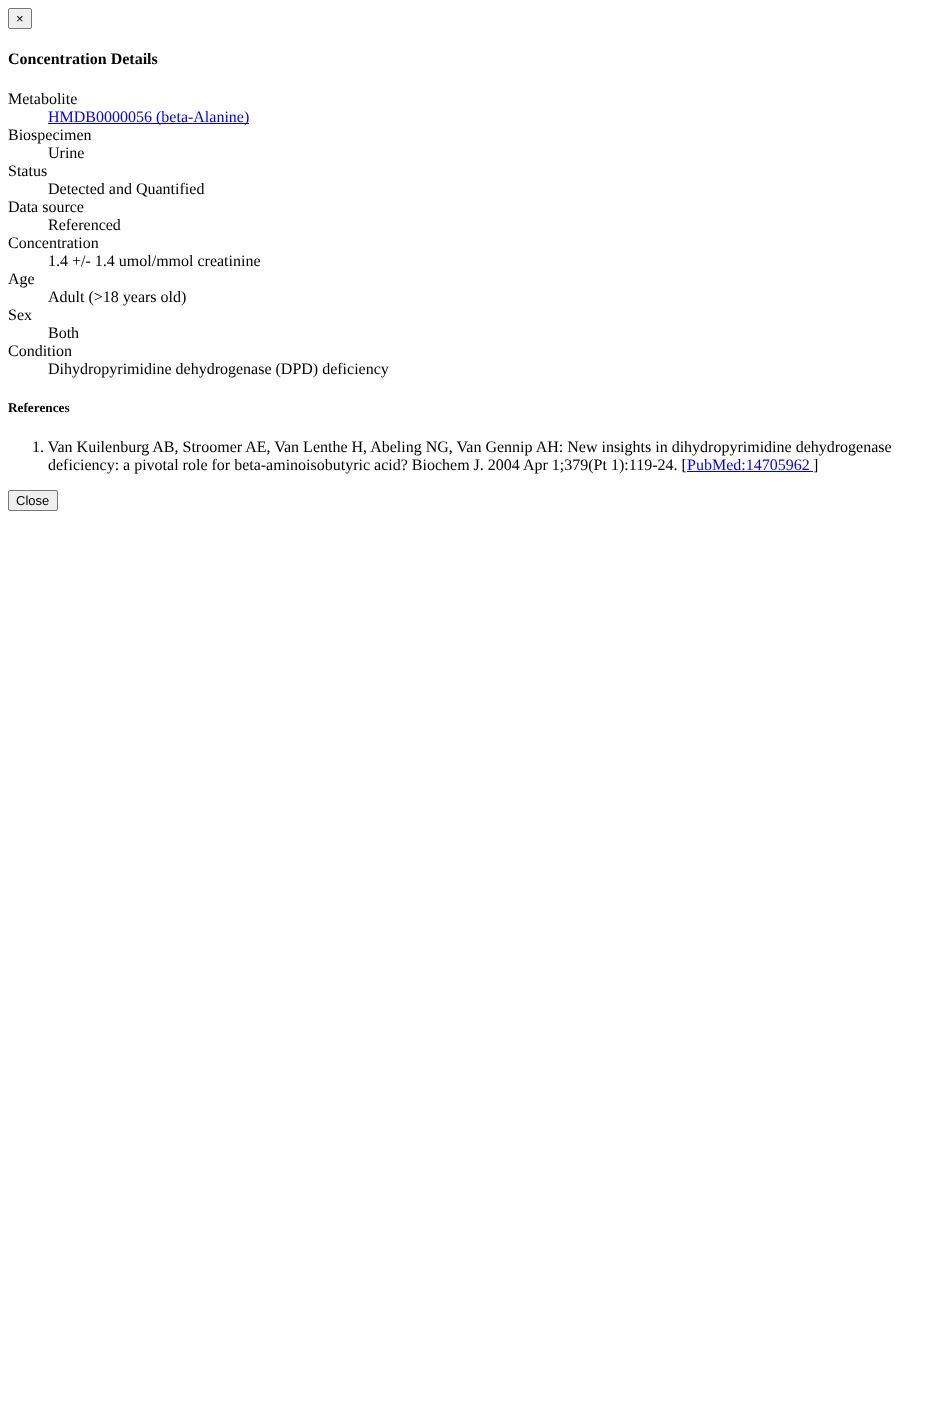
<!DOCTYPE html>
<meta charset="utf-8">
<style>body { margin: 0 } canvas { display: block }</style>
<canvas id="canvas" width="947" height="1423"></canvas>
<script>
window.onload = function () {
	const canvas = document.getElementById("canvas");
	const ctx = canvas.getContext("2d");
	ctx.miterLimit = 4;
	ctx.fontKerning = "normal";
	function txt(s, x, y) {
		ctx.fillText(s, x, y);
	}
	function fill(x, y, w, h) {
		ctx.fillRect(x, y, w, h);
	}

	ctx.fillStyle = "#FFFFFF";
	fill(0, 0, 947, 1423);
	ctx.fillStyle = "#EFEFEF";
	ctx.beginPath();
	ctx.roundRect(8.5, 8.5, 23, 20, 1.5);
	ctx.fill();
	ctx.strokeStyle = "#767676";
	ctx.stroke();
	ctx.fillStyle = "#0000EE";
	fill(48, 123, 201, 1);
	fill(687, 471, 126, 1);
	ctx.fillStyle = "#EFEFEF";
	ctx.beginPath();
	ctx.roundRect(8.5, 490.5, 49, 20, 1.5);
	ctx.fill();
	ctx.stroke();
	ctx.font = "13px Liberation Sans";
	ctx.fillStyle = "#000000";
	txt("×", 16, 23);
	ctx.font = "bold 16px Liberation Serif";
	txt("Concentration Details", 8, 64);
	ctx.font = "16px Liberation Serif";
	txt("Metabolite", 8, 104);
	ctx.fillStyle = "#0000EE";
	txt("HMDB0000056 (beta-Alanine)", 48, 122);
	ctx.fillStyle = "#000000";
	txt("Biospecimen", 8, 140);
	txt("Urine", 48, 158);
	txt("Status", 8, 176);
	txt("Detected and Quantified", 48, 194);
	txt("Data source", 8, 212);
	txt("Referenced", 48, 230);
	txt("Concentration", 8, 248);
	txt("1.4 +/- 1.4 umol/mmol creatinine", 48, 266);
	txt("Age", 8, 284);
	txt("Adult (>18 years old)", 48, 302);
	txt("Sex", 8, 320);
	txt("Both", 48, 338);
	txt("Condition", 8, 356);
	txt("Dihydropyrimidine dehydrogenase (DPD) deficiency", 48, 374);
	ctx.font = "bold 13.25px Liberation Serif";
	txt("References", 8, 412);
	ctx.font = "16px Liberation Serif";
	txt("1. Van Kuilenburg AB, Stroomer AE, Van Lenthe H, Abeling NG, Van Gennip AH: New insights in dihydropyrimidine dehydrogenase", 32, 452);
	txt("deficiency: a pivotal role for beta-aminoisobutyric acid? Biochem J. 2004 Apr 1;379(Pt 1):119-24. [", 48, 470);
	ctx.fillStyle = "#0000EE";
	txt("PubMed:14705962", 687, 470);
	ctx.fillStyle = "#000000";
	txt("]", 813, 470);
	ctx.font = "13px Liberation Sans";
	txt("Close", 16, 505);
};
</script>
